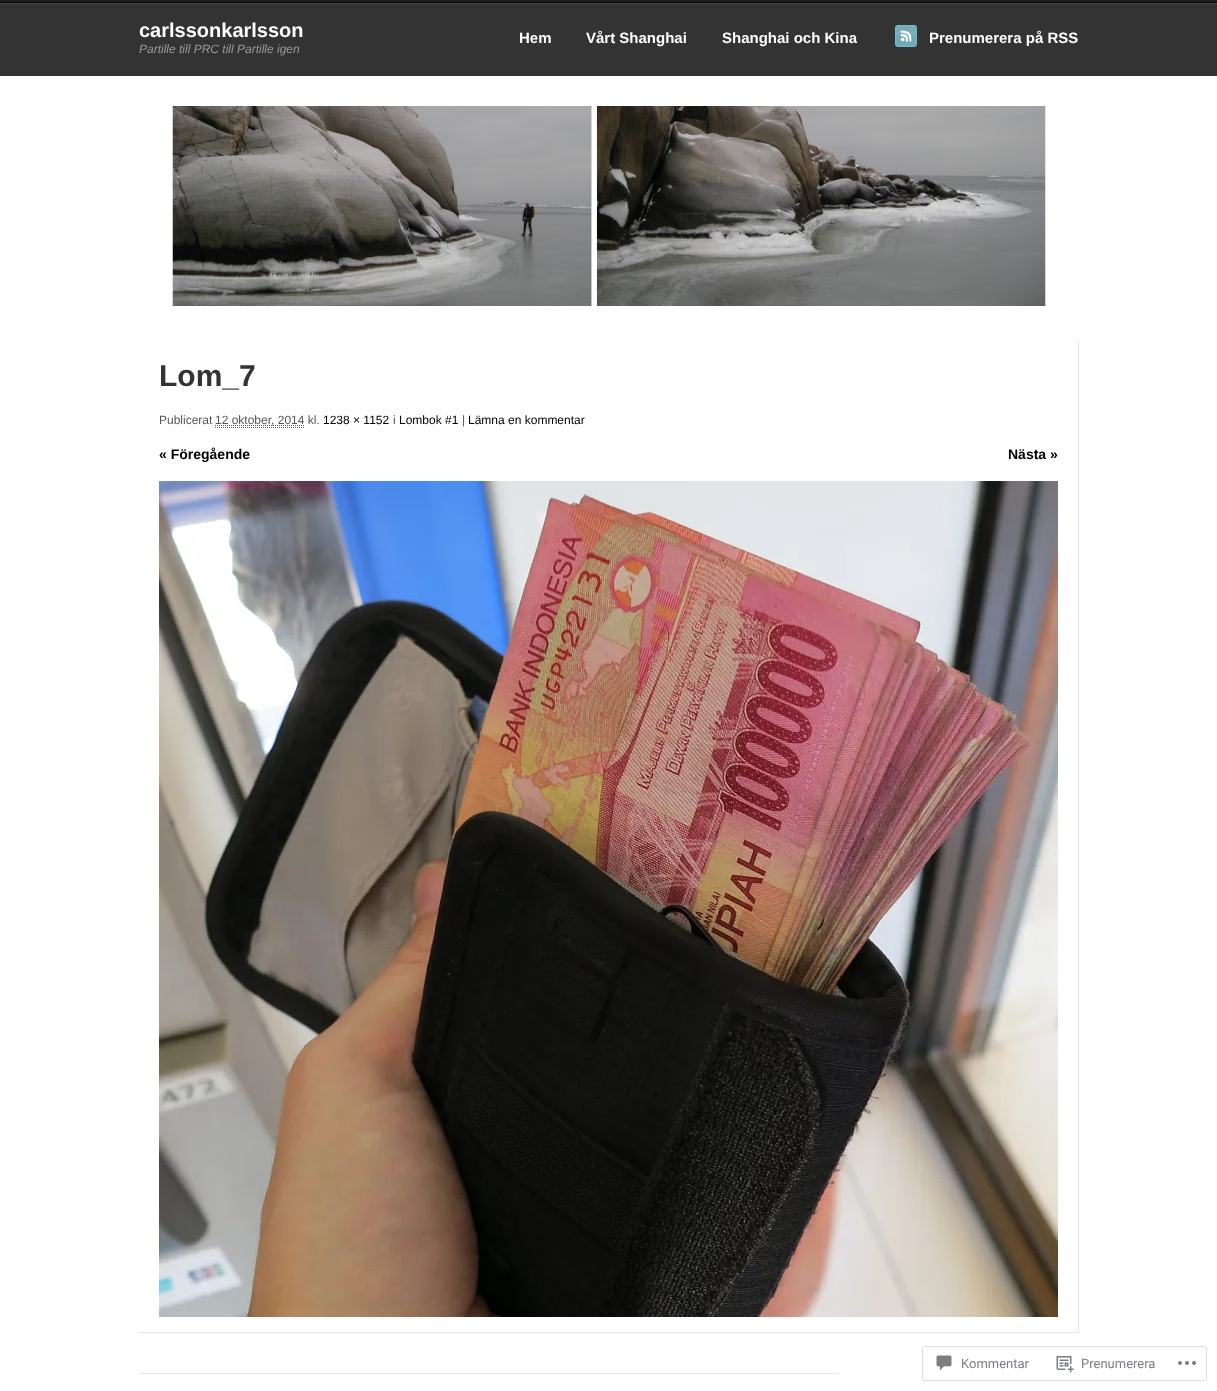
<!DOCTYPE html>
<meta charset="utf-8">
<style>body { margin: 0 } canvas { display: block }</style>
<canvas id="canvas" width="1217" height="1391"></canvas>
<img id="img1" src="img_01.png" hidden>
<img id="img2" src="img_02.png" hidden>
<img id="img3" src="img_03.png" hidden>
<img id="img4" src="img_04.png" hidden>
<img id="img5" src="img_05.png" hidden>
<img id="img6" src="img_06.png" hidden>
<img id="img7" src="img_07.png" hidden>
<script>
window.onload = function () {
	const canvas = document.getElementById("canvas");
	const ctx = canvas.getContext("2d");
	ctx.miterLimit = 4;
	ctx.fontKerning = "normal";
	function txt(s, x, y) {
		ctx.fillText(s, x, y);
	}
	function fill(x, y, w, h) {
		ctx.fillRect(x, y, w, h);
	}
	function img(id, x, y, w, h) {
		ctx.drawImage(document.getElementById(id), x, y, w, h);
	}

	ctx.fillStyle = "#FFFFFF";
	fill(0, 0, 1217, 1391);
	ctx.fillStyle = "#333333";
	fill(0, 0, 1217, 76);
	img("img1", 0, 0, 1217, 4);
	img("img2", 895, 25, 22, 22);
	img("img3", 172, 106, 874, 200);
	ctx.fillStyle = "#E3E3E3";
	fill(1078, 341, 1, 992);
	fill(139, 1332, 940, 1);
	ctx.beginPath();
	ctx.moveTo(215, 427.5);
	ctx.lineTo(305, 427.5);
	ctx.strokeStyle = "#666666";
	ctx.setLineDash([1, 1]);
	ctx.stroke();
	ctx.beginPath();
	ctx.moveTo(215, 425.5);
	ctx.lineTo(304.5, 425.5);
	ctx.strokeStyle = "#555555";
	ctx.stroke();
	img("img4", 159, 481, 899, 836);
	ctx.fillStyle = "#E8E8E8";
	fill(139, 1373, 700, 1);
	ctx.beginPath();
	ctx.roundRect(922.5, 1346.5, 284, 34, 2.5);
	ctx.strokeStyle = "#DDDDDF";
	ctx.setLineDash([]);
	ctx.stroke();
	img("img5", 936, 1355, 16, 16);
	img("img6", 1056, 1356, 18, 17);
	img("img7", 1178, 1361, 18, 4);
	ctx.font = "bold 20px Liberation Sans";
	ctx.fillStyle = "#FFFFFF";
	txt("carlssonkarlsson", 139, 37);
	ctx.font = "italic 12px Liberation Sans";
	ctx.fillStyle = "#999999";
	txt("Partille till PRC till Partille igen", 139, 53);
	ctx.font = "bold 15px Liberation Sans";
	ctx.fillStyle = "#FFFFFF";
	txt("Hem", 519, 43);
	txt("Vårt Shanghai", 586, 43);
	txt("Shanghai och Kina", 722, 43);
	txt("Prenumerera på RSS", 929, 43);
	ctx.font = "bold 30px Liberation Sans";
	ctx.fillStyle = "#333333";
	txt("Lom_7", 159, 386);
	ctx.font = "12px Liberation Sans";
	ctx.fillStyle = "#555555";
	txt("Publicerat", 159, 424);
	txt("12 oktober, 2014 kl.", 215, 424);
	ctx.fillStyle = "#000000";
	txt("1238 × 1152", 323, 424);
	ctx.fillStyle = "#555555";
	txt("i", 393, 424);
	ctx.fillStyle = "#000000";
	txt("Lombok #1", 399, 424);
	ctx.fillStyle = "#555555";
	txt("|", 462, 424);
	ctx.fillStyle = "#000000";
	txt("Lämna en kommentar", 468, 424);
	ctx.font = "bold 14px Liberation Sans";
	txt("« Föregående", 159, 459);
	txt("Nästa »", 1008, 459);
	ctx.font = "13px Roboto";
	ctx.fillStyle = "#7B7F85";
	txt("Kommentar", 961, 1368);
	txt("Prenumerera", 1081, 1368);
};
</script>
